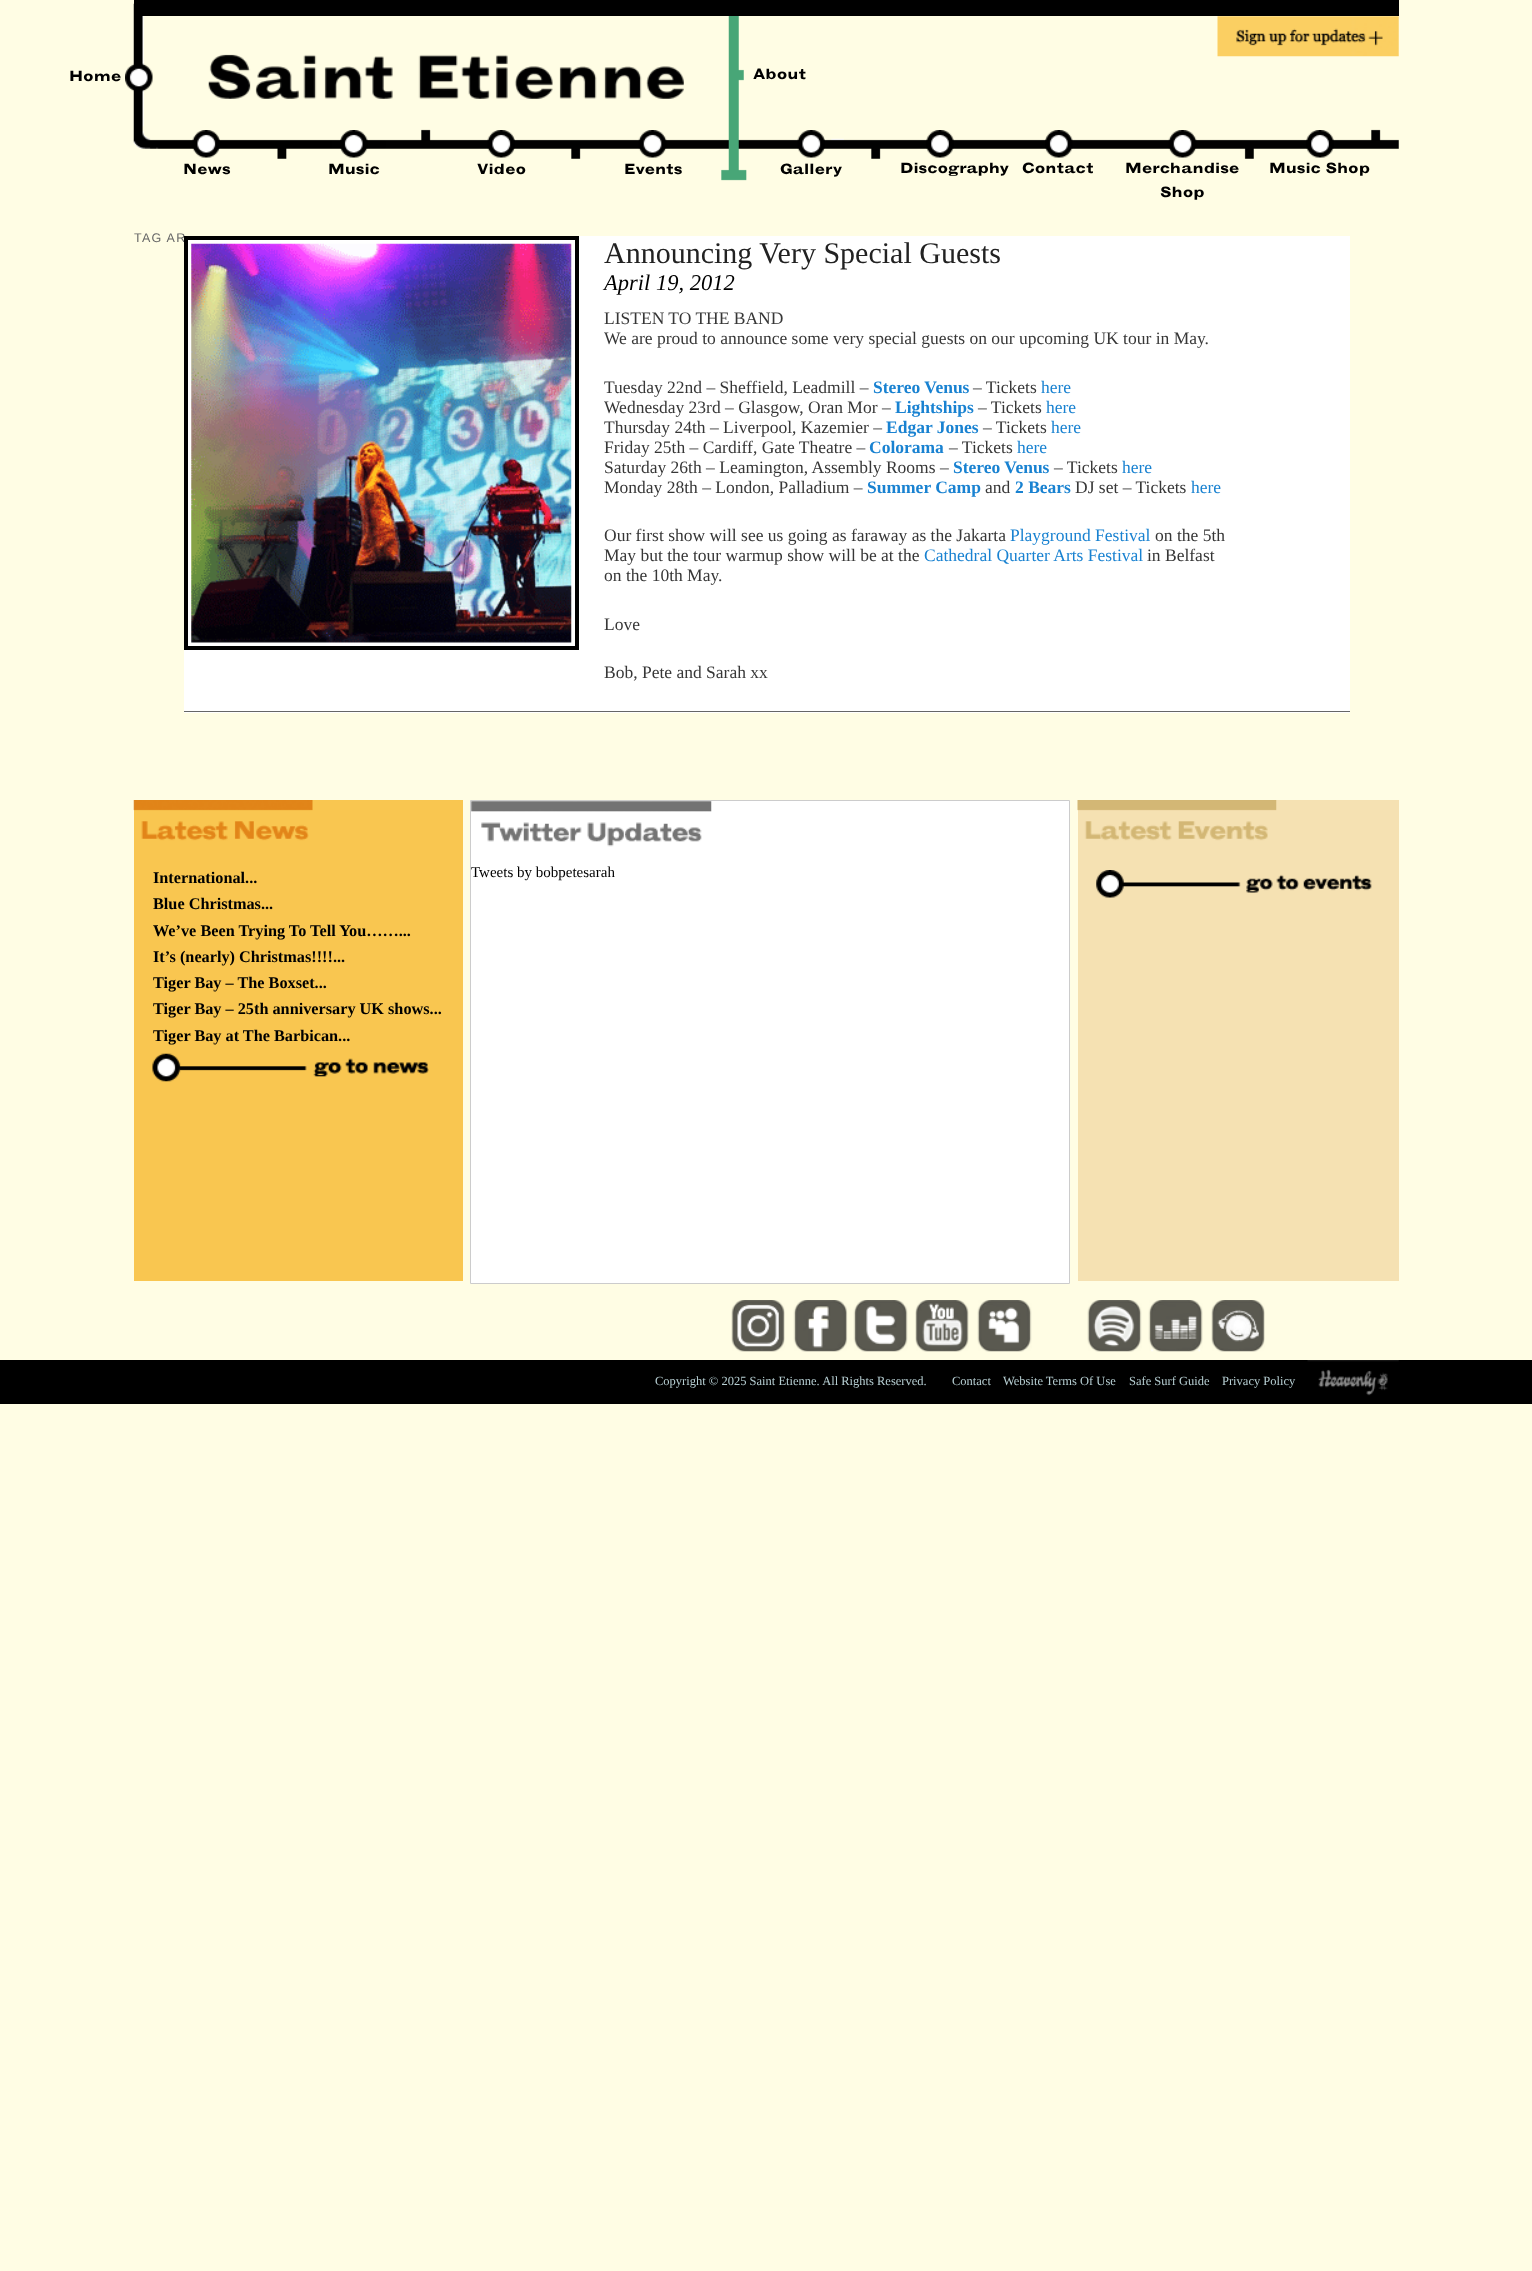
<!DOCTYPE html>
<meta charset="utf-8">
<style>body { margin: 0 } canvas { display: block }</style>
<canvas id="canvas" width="1532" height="2271"></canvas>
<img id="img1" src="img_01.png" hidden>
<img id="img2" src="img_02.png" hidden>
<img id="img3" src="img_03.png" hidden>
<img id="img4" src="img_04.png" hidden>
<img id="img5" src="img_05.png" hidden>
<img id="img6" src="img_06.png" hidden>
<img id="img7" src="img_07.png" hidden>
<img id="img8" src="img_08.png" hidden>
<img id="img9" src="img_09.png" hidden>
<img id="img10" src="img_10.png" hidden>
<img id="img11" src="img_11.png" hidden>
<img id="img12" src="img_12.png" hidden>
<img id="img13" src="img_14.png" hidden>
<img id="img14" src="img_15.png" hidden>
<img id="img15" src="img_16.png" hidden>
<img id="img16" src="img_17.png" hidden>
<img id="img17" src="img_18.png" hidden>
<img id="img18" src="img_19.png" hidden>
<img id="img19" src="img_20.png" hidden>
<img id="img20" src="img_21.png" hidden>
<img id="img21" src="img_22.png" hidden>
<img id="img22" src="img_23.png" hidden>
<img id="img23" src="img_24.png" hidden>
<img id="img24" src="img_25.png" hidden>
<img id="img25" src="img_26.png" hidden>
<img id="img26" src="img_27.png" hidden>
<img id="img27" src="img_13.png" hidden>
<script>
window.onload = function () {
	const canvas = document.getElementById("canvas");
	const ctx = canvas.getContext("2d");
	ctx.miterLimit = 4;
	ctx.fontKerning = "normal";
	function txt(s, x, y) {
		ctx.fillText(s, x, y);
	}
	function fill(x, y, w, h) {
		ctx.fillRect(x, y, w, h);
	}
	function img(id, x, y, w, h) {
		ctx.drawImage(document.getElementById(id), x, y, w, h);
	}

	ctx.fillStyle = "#FFFDE4";
	fill(0, 0, 1532, 2271);
	img("img1", 133, 3, 1266, 178);
	ctx.fillStyle = "#000000";
	fill(134, 0, 1265, 16);
	img("img2", 1217, 16, 182, 41);
	img("img3", 125, 63, 28, 29);
	img("img4", 208, 54, 476, 45);
	img("img5", 192, 130, 28, 28);
	img("img6", 340, 130, 28, 28);
	img("img7", 487, 130, 28, 28);
	img("img8", 638, 130, 29, 28);
	img("img9", 797, 130, 28, 28);
	img("img10", 926, 130, 28, 28);
	img("img11", 1045, 130, 28, 28);
	img("img12", 1168, 130, 29, 28);
	img("img10", 1306, 130, 28, 28);
	ctx.fillStyle = "#F9C650";
	fill(134, 800, 329, 481);
	img("img13", 133, 800, 180, 41);
	img("img14", 152, 1053, 277, 29);
	ctx.fillStyle = "#FFFFFF";
	ctx.beginPath();
	ctx.rect(470.5, 800.5, 599, 483);
	ctx.fill();
	ctx.strokeStyle = "#CCCCCC";
	ctx.stroke();
	img("img15", 471, 801, 241, 46);
	ctx.fillStyle = "#F5E1B2";
	fill(1078, 800, 321, 481);
	img("img16", 1077, 800, 200, 41);
	img("img17", 1096, 870, 276, 28);
	img("img18", 731, 1300, 54, 52);
	img("img19", 793, 1300, 55, 52);
	img("img20", 847, 1300, 61, 52);
	img("img21", 915, 1300, 54, 52);
	img("img22", 977, 1300, 55, 52);
	img("img23", 1087, 1300, 55, 52);
	img("img24", 1148, 1300, 55, 52);
	img("img25", 1211, 1300, 54, 52);
	ctx.fillStyle = "#000000";
	fill(0, 1360, 1532, 44);
	img("img26", 1307, 1360, 92, 36);
	ctx.font = "bold 15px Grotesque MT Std";
	txt("Home", 69, 81);
	txt("About", 753, 79);
	txt("News", 183, 174);
	txt("Music", 328, 174);
	txt("Video", 477, 174);
	txt("Events", 624, 174);
	txt("Gallery", 780, 174);
	txt("Discography", 900, 173);
	txt("Contact", 1022, 173);
	txt("Merchandise", 1125, 173);
	txt("Shop", 1160, 197);
	txt("Music Shop", 1269, 173);
	ctx.letterSpacing = "1.25px";
	ctx.font = "12.5px Liberation Sans";
	ctx.fillStyle = "#666666";
	txt("TAG AR", 134, 242);
	ctx.fillStyle = "#FFFFFF";
	fill(184, 236, 1166, 477);
	ctx.fillStyle = "#666666";
	fill(184, 711, 1166, 1);
	ctx.strokeStyle = "#000000";
	ctx.lineWidth = 4;
	ctx.strokeRect(186, 238, 391, 410);
	img("img27", 191, 243, 381, 400);
	ctx.letterSpacing = "0px";
	ctx.font = "30px Liberation Serif";
	ctx.fillStyle = "#222222";
	txt("Announcing Very Special Guests", 604, 263);
	ctx.font = "italic 22.5px Liberation Serif";
	ctx.fillStyle = "#000000";
	txt("April 19, 2012", 604, 290);
	ctx.font = "17.5px Liberation Serif";
	ctx.fillStyle = "#373737";
	txt("LISTEN TO THE BAND", 604, 324);
	txt("We are proud to announce some very special guests on our upcoming UK tour in May.", 604, 344);
	txt("Tuesday 22nd – Sheffield, Leadmill –", 604, 393);
	ctx.font = "bold 17.5px Liberation Serif";
	ctx.fillStyle = "#1982D1";
	txt("Stereo Venus", 873, 393);
	ctx.font = "17.5px Liberation Serif";
	ctx.fillStyle = "#373737";
	txt("– Tickets", 973, 393);
	ctx.fillStyle = "#1982D1";
	txt("here", 1041, 393);
	ctx.fillStyle = "#373737";
	txt("Wednesday 23rd – Glasgow, Oran Mor –", 604, 413);
	ctx.font = "bold 17.5px Liberation Serif";
	ctx.fillStyle = "#1982D1";
	txt("Lightships", 895, 413);
	ctx.font = "17.5px Liberation Serif";
	ctx.fillStyle = "#373737";
	txt("– Tickets", 978, 413);
	ctx.fillStyle = "#1982D1";
	txt("here", 1046, 413);
	ctx.fillStyle = "#373737";
	txt("Thursday 24th – Liverpool, Kazemier –", 604, 433);
	ctx.font = "bold 17.5px Liberation Serif";
	ctx.fillStyle = "#1982D1";
	txt("Edgar Jones", 886, 433);
	ctx.font = "17.5px Liberation Serif";
	ctx.fillStyle = "#373737";
	txt("– Tickets", 983, 433);
	ctx.fillStyle = "#1982D1";
	txt("here", 1051, 433);
	ctx.fillStyle = "#373737";
	txt("Friday 25th – Cardiff, Gate Theatre –", 604, 453);
	ctx.font = "bold 17.5px Liberation Serif";
	ctx.fillStyle = "#1982D1";
	txt("Colorama", 869, 453);
	ctx.font = "17.5px Liberation Serif";
	ctx.fillStyle = "#373737";
	txt("– Tickets", 949, 453);
	ctx.fillStyle = "#1982D1";
	txt("here", 1017, 453);
	ctx.fillStyle = "#373737";
	txt("Saturday 26th – Leamington, Assembly Rooms –", 604, 473);
	ctx.font = "bold 17.5px Liberation Serif";
	ctx.fillStyle = "#1982D1";
	txt("Stereo Venus", 953, 473);
	ctx.font = "17.5px Liberation Serif";
	ctx.fillStyle = "#373737";
	txt("– Tickets", 1054, 473);
	ctx.fillStyle = "#1982D1";
	txt("here", 1122, 473);
	ctx.fillStyle = "#373737";
	txt("Monday 28th – London, Palladium –", 604, 493);
	ctx.font = "bold 17.5px Liberation Serif";
	ctx.fillStyle = "#1982D1";
	txt("Summer Camp", 867, 493);
	ctx.font = "17.5px Liberation Serif";
	ctx.fillStyle = "#373737";
	txt("and", 985, 493);
	ctx.font = "bold 17.5px Liberation Serif";
	ctx.fillStyle = "#1982D1";
	txt("2 Bears", 1015, 493);
	ctx.font = "17.5px Liberation Serif";
	ctx.fillStyle = "#373737";
	txt("DJ set – Tickets", 1075, 493);
	ctx.fillStyle = "#1982D1";
	txt("here", 1191, 493);
	ctx.fillStyle = "#373737";
	txt("Our first show will see us going as faraway as the Jakarta", 604, 541);
	ctx.fillStyle = "#1982D1";
	txt("Playground Festival", 1010, 541);
	ctx.fillStyle = "#373737";
	txt("on the 5th", 1155, 541);
	txt("May but the tour warmup show will be at the", 604, 561);
	ctx.fillStyle = "#1982D1";
	txt("Cathedral Quarter Arts Festival", 924, 561);
	ctx.fillStyle = "#373737";
	txt("in Belfast", 1147, 561);
	txt("on the 10th May.", 604, 581);
	txt("Love", 604, 630);
	txt("Bob, Pete and Sarah xx", 604, 678);
	ctx.font = "bold 16.25px Liberation Serif";
	ctx.fillStyle = "#000000";
	txt("International...", 153, 883);
	txt("Blue Christmas...", 153, 909);
	txt("We’ve Been Trying To Tell You……...", 153, 936);
	txt("It’s (nearly) Christmas!!!!...", 153, 962);
	txt("Tiger Bay – The Boxset...", 153, 988);
	txt("Tiger Bay – 25th anniversary UK shows...", 153, 1014);
	txt("Tiger Bay at The Barbican...", 153, 1041);
	ctx.font = "15px Liberation Serif";
	txt("Tweets by bobpetesarah", 471, 877);
	ctx.font = "12.5px Liberation Serif";
	ctx.fillStyle = "#B7CFD3";
	txt("Copyright © 2025 Saint Etienne. All Rights Reserved.", 655, 1385);
	txt("Contact", 952, 1385);
	txt("Website Terms Of Use", 1003, 1385);
	txt("Safe Surf Guide", 1129, 1385);
	txt("Privacy Policy", 1222, 1385);
};
</script>
